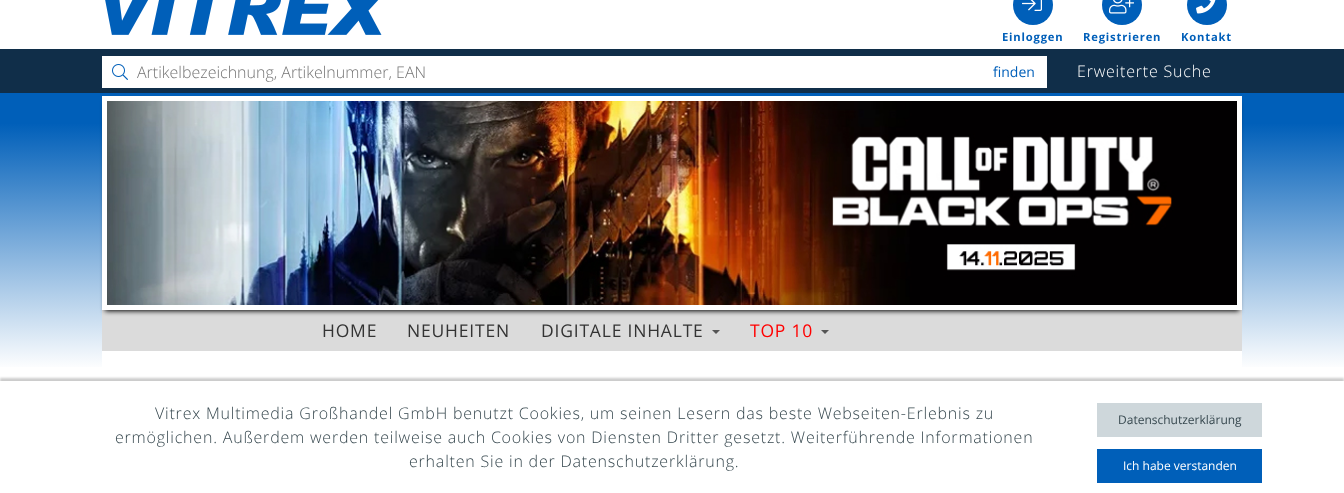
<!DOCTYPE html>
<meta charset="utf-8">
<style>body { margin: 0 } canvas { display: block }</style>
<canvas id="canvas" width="1344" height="493"></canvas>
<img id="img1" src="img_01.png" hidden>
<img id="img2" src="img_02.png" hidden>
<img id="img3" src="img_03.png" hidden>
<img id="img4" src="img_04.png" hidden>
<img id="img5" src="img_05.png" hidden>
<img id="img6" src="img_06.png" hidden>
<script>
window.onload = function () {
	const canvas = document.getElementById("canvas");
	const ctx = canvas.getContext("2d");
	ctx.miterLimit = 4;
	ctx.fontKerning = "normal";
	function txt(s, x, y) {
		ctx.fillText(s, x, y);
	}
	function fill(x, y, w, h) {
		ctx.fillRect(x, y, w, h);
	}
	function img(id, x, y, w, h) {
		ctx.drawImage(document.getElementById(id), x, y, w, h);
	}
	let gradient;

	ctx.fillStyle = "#FFFFFF";
	fill(0, 0, 1344, 493);
	img("img1", 105, 0, 277, 35);
	ctx.fillStyle = "#005FB9";
	ctx.beginPath();
	ctx.arc(1033, 5, 20, 0, Math.PI * 2);
	ctx.fill();
	img("img2", 1022, 0, 20, 11);
	ctx.beginPath();
	ctx.arc(1122, 5, 20, 0, Math.PI * 2);
	ctx.fill();
	img("img3", 1109, 0, 25, 14);
	ctx.beginPath();
	ctx.arc(1207, 5, 20, 0, Math.PI * 2);
	ctx.fill();
	img("img4", 1196, 0, 20, 14);
	ctx.fillStyle = "#102E49";
	fill(0, 49, 1344, 44);
	ctx.fillStyle = "#FFFFFF";
	fill(102, 56, 945, 32);
	img("img5", 112, 64, 16, 16);
	gradient = ctx.createLinearGradient(672, 0, 672, 493);
	gradient.addColorStop(0, "#005FB9");
	gradient.addColorStop(0.25, "#005FB9");
	gradient.addColorStop(0.75, "#FFFFFF");
	gradient.addColorStop(1, "#FFFFFF");
	ctx.fillStyle = gradient;
	fill(0, 93, 1344, 274);
	ctx.fillStyle = "#DBDBDB";
	fill(102, 310, 1140, 41);
	ctx.fillStyle = "#000000";
	ctx.filter = "blur(2.5px)";
	ctx.beginPath();
	ctx.rect(105, 103, 1134, 208);
	ctx.fill();
	ctx.filter = "none";
	ctx.strokeStyle = "#FFFFFF";
	ctx.lineWidth = 5;
	ctx.strokeRect(104.5, 98.5, 1135, 209);
	img("img6", 107, 101, 1130, 204);
	ctx.fillStyle = "#FFFFFF";
	fill(102, 351, 1140, 16);
	ctx.fillStyle = "#555555";
	ctx.beginPath();
	ctx.moveTo(712, 330);
	ctx.lineTo(720, 330);
	ctx.lineTo(716, 334);
	ctx.closePath();
	ctx.fill();
	ctx.beginPath();
	ctx.moveTo(821, 330);
	ctx.lineTo(829, 330);
	ctx.lineTo(825, 334);
	ctx.closePath();
	ctx.fill();
	ctx.fillStyle = "rgba(0, 0, 0, 0.2)";
	ctx.filter = "blur(1px)";
	ctx.beginPath();
	ctx.rect(0, 378, 1344, 112);
	ctx.fill();
	ctx.filter = "none";
	ctx.fillStyle = "#FFFFFF";
	fill(0, 381, 1344, 111);
	ctx.fillStyle = "#CED7DB";
	fill(1097, 403, 165, 34);
	ctx.fillStyle = "#005FB9";
	fill(1097, 449, 165, 34);
	ctx.letterSpacing = "0.8px";
	ctx.font = "bold 11.25px Open Sans";
	txt("Einloggen", 1002, 41);
	txt("Registrieren", 1083, 41);
	txt("Kontakt", 1181, 41);
	ctx.letterSpacing = "0px";
	ctx.font = "300 16px Open Sans";
	ctx.fillStyle = "#757575";
	txt("Artikelbezeichnung, Artikelnummer, EAN", 137, 78);
	ctx.font = "14px Open Sans";
	ctx.fillStyle = "#005FB9";
	txt("finden", 993, 77);
	ctx.letterSpacing = "0.8px";
	ctx.font = "300 16px Open Sans";
	ctx.fillStyle = "#FFFFFF";
	txt("Erweiterte Suche", 1077, 77);
	ctx.font = "17.5px Open Sans";
	ctx.fillStyle = "#333333";
	txt("HOME", 322, 337);
	txt("NEUHEITEN", 407, 337);
	txt("DIGITALE INHALTE", 541, 337);
	ctx.fillStyle = "#FF0000";
	txt("TOP 10", 750, 337);
	ctx.font = "300 16px Open Sans";
	ctx.fillStyle = "#37484F";
	txt("Vitrex Multimedia Großhandel GmbH benutzt Cookies, um seinen Lesern das beste Webseiten-Erlebnis zu", 155, 419);
	txt("ermöglichen. Außerdem werden teilweise auch Cookies von Diensten Dritter gesetzt. Weiterführende Informationen", 115, 443);
	txt("erhalten Sie in der Datenschutzerklärung.", 409, 467);
	ctx.letterSpacing = "0px";
	ctx.font = "12px Open Sans";
	txt("Datenschutzerklärung", 1118, 424);
	ctx.fillStyle = "#FFFFFF";
	txt("Ich habe verstanden", 1123, 470);
};
</script>
